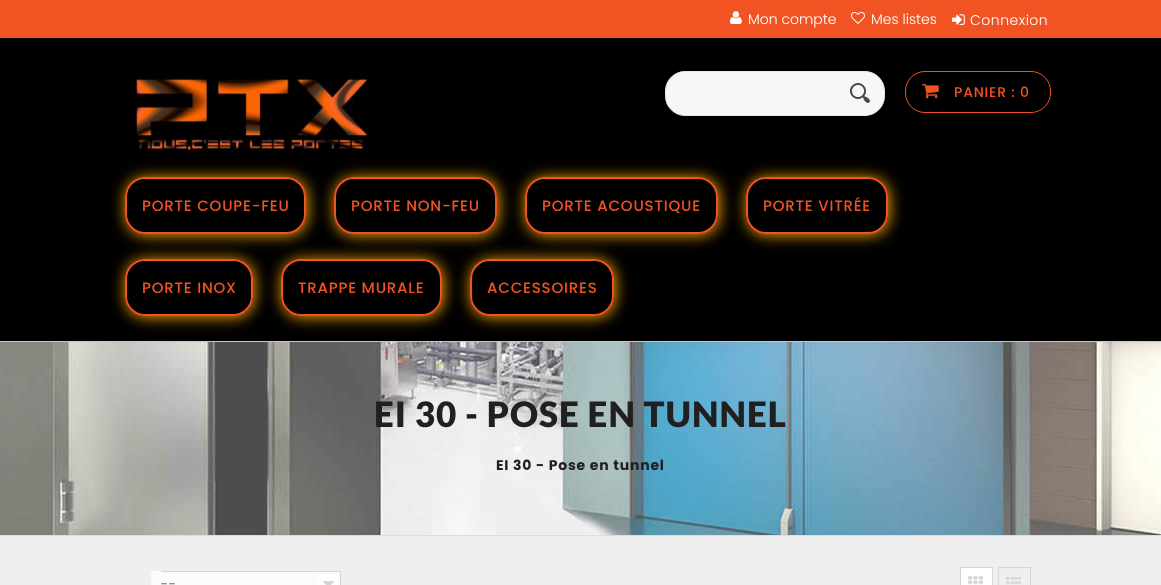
<!DOCTYPE html>
<meta charset="utf-8">
<style>body { margin: 0 } canvas { display: block }</style>
<canvas id="canvas" width="1161" height="585"></canvas>
<img id="img1" src="img_07.png" hidden>
<img id="img2" src="img_01.png" hidden>
<img id="img3" src="img_02.png" hidden>
<img id="img4" src="img_03.png" hidden>
<img id="img5" src="img_04.png" hidden>
<img id="img6" src="img_05.png" hidden>
<img id="img7" src="img_06.png" hidden>
<img id="img8" src="img_08.png" hidden>
<img id="img9" src="img_09.png" hidden>
<img id="img10" src="img_10.png" hidden>
<script>
window.onload = function () {
	const canvas = document.getElementById("canvas");
	const ctx = canvas.getContext("2d");
	ctx.miterLimit = 4;
	ctx.fontKerning = "normal";
	function txt(s, x, y) {
		ctx.fillText(s, x, y);
	}
	function fill(x, y, w, h) {
		ctx.fillRect(x, y, w, h);
	}
	function img(id, x, y, w, h) {
		ctx.drawImage(document.getElementById(id), x, y, w, h);
	}

	ctx.fillStyle = "#EFEFEF";
	fill(0, 0, 1161, 585);
	img("img1", 0, 342, 1161, 193);
	ctx.fillStyle = "#DDDDDD";
	fill(0, 341, 1161, 1);
	ctx.fillStyle = "rgba(0, 0, 0, 0.1)";
	ctx.filter = "blur(0.5px)";
	ctx.beginPath();
	ctx.rect(0, 1, 1161, 341);
	ctx.fill();
	ctx.filter = "none";
	ctx.fillStyle = "#000000";
	fill(0, 38, 1161, 303);
	ctx.fillStyle = "#F15323";
	fill(0, 0, 1161, 38);
	img("img2", 730, 11, 12, 14);
	img("img3", 851, 12, 14, 12);
	img("img4", 952, 14, 13, 11);
	img("img5", 134, 74, 238, 84);
	ctx.fillStyle = "#F7F7F7";
	ctx.beginPath();
	ctx.roundRect(665.5, 71.5, 219, 44, 19.5);
	ctx.fill();
	ctx.strokeStyle = "#E7E7E7";
	ctx.stroke();
	ctx.fillStyle = "#494940";
	fill(850, 83, 20, 20);
	img("img6", 850, 83, 20, 20);
	ctx.beginPath();
	ctx.roundRect(905.5, 71.5, 145, 41, 19.5);
	ctx.strokeStyle = "#F15323";
	ctx.stroke();
	img("img7", 922, 84, 17, 15);
	ctx.save();
	ctx.beginPath();
	ctx.moveTo(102, 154);
	ctx.lineTo(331, 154);
	ctx.lineTo(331, 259);
	ctx.lineTo(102, 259);
	ctx.closePath();
	ctx.moveTo(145, 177);
	ctx.lineTo(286, 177);
	ctx.bezierCurveTo(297, 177, 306, 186, 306, 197);
	ctx.lineTo(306, 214);
	ctx.bezierCurveTo(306, 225, 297, 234, 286, 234);
	ctx.lineTo(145, 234);
	ctx.bezierCurveTo(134, 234, 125, 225, 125, 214);
	ctx.lineTo(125, 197);
	ctx.bezierCurveTo(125, 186, 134, 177, 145, 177);
	ctx.closePath();
	ctx.clip("evenodd");
	ctx.fillStyle = "#FFA500";
	ctx.filter = "blur(7.5px)";
	ctx.beginPath();
	ctx.roundRect(126, 178, 181, 57, 20);
	ctx.fill();
	ctx.filter = "none";
	ctx.restore();
	ctx.beginPath();
	ctx.roundRect(126, 178, 179, 55, 19);
	ctx.lineWidth = 2;
	ctx.stroke();
	ctx.save();
	ctx.beginPath();
	ctx.moveTo(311, 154);
	ctx.lineTo(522, 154);
	ctx.lineTo(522, 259);
	ctx.lineTo(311, 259);
	ctx.closePath();
	ctx.moveTo(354, 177);
	ctx.lineTo(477, 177);
	ctx.bezierCurveTo(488, 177, 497, 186, 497, 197);
	ctx.lineTo(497, 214);
	ctx.bezierCurveTo(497, 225, 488, 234, 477, 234);
	ctx.lineTo(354, 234);
	ctx.bezierCurveTo(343, 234, 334, 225, 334, 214);
	ctx.lineTo(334, 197);
	ctx.bezierCurveTo(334, 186, 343, 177, 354, 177);
	ctx.closePath();
	ctx.clip("evenodd");
	ctx.fillStyle = "#FFA500";
	ctx.filter = "blur(7.5px)";
	ctx.beginPath();
	ctx.roundRect(335, 178, 163, 57, 20);
	ctx.fill();
	ctx.filter = "none";
	ctx.restore();
	ctx.beginPath();
	ctx.roundRect(335, 178, 161, 55, 19);
	ctx.stroke();
	ctx.save();
	ctx.beginPath();
	ctx.moveTo(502, 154);
	ctx.lineTo(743, 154);
	ctx.lineTo(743, 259);
	ctx.lineTo(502, 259);
	ctx.closePath();
	ctx.moveTo(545, 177);
	ctx.lineTo(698, 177);
	ctx.bezierCurveTo(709, 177, 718, 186, 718, 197);
	ctx.lineTo(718, 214);
	ctx.bezierCurveTo(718, 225, 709, 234, 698, 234);
	ctx.lineTo(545, 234);
	ctx.bezierCurveTo(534, 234, 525, 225, 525, 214);
	ctx.lineTo(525, 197);
	ctx.bezierCurveTo(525, 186, 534, 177, 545, 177);
	ctx.closePath();
	ctx.clip("evenodd");
	ctx.fillStyle = "#FFA500";
	ctx.filter = "blur(7.5px)";
	ctx.beginPath();
	ctx.roundRect(526, 178, 193, 57, 20);
	ctx.fill();
	ctx.filter = "none";
	ctx.restore();
	ctx.beginPath();
	ctx.roundRect(526, 178, 191, 55, 19);
	ctx.stroke();
	ctx.save();
	ctx.beginPath();
	ctx.moveTo(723, 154);
	ctx.lineTo(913, 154);
	ctx.lineTo(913, 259);
	ctx.lineTo(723, 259);
	ctx.closePath();
	ctx.moveTo(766, 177);
	ctx.lineTo(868, 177);
	ctx.bezierCurveTo(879, 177, 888, 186, 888, 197);
	ctx.lineTo(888, 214);
	ctx.bezierCurveTo(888, 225, 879, 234, 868, 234);
	ctx.lineTo(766, 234);
	ctx.bezierCurveTo(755, 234, 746, 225, 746, 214);
	ctx.lineTo(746, 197);
	ctx.bezierCurveTo(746, 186, 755, 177, 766, 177);
	ctx.closePath();
	ctx.clip("evenodd");
	ctx.fillStyle = "#FFA500";
	ctx.filter = "blur(7.5px)";
	ctx.beginPath();
	ctx.roundRect(747, 178, 142, 57, 20);
	ctx.fill();
	ctx.filter = "none";
	ctx.restore();
	ctx.beginPath();
	ctx.roundRect(747, 178, 140, 55, 19);
	ctx.stroke();
	ctx.save();
	ctx.beginPath();
	ctx.moveTo(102, 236);
	ctx.lineTo(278, 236);
	ctx.lineTo(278, 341);
	ctx.lineTo(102, 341);
	ctx.closePath();
	ctx.moveTo(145, 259);
	ctx.lineTo(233, 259);
	ctx.bezierCurveTo(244, 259, 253, 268, 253, 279);
	ctx.lineTo(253, 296);
	ctx.bezierCurveTo(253, 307, 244, 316, 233, 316);
	ctx.lineTo(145, 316);
	ctx.bezierCurveTo(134, 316, 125, 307, 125, 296);
	ctx.lineTo(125, 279);
	ctx.bezierCurveTo(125, 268, 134, 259, 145, 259);
	ctx.closePath();
	ctx.clip("evenodd");
	ctx.fillStyle = "#FFA500";
	ctx.filter = "blur(7.5px)";
	ctx.beginPath();
	ctx.roundRect(126, 260, 128, 57, 20);
	ctx.fill();
	ctx.filter = "none";
	ctx.restore();
	ctx.beginPath();
	ctx.roundRect(126, 260, 126, 55, 19);
	ctx.stroke();
	ctx.save();
	ctx.beginPath();
	ctx.moveTo(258, 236);
	ctx.lineTo(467, 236);
	ctx.lineTo(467, 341);
	ctx.lineTo(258, 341);
	ctx.closePath();
	ctx.moveTo(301, 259);
	ctx.lineTo(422, 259);
	ctx.bezierCurveTo(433, 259, 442, 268, 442, 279);
	ctx.lineTo(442, 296);
	ctx.bezierCurveTo(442, 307, 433, 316, 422, 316);
	ctx.lineTo(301, 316);
	ctx.bezierCurveTo(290, 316, 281, 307, 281, 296);
	ctx.lineTo(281, 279);
	ctx.bezierCurveTo(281, 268, 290, 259, 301, 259);
	ctx.closePath();
	ctx.clip("evenodd");
	ctx.fillStyle = "#FFA500";
	ctx.filter = "blur(7.5px)";
	ctx.beginPath();
	ctx.roundRect(282, 260, 161, 57, 20);
	ctx.fill();
	ctx.filter = "none";
	ctx.restore();
	ctx.beginPath();
	ctx.roundRect(282, 260, 159, 55, 19);
	ctx.stroke();
	ctx.save();
	ctx.beginPath();
	ctx.moveTo(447, 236);
	ctx.lineTo(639, 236);
	ctx.lineTo(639, 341);
	ctx.lineTo(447, 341);
	ctx.closePath();
	ctx.moveTo(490, 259);
	ctx.lineTo(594, 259);
	ctx.bezierCurveTo(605, 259, 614, 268, 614, 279);
	ctx.lineTo(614, 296);
	ctx.bezierCurveTo(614, 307, 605, 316, 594, 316);
	ctx.lineTo(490, 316);
	ctx.bezierCurveTo(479, 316, 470, 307, 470, 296);
	ctx.lineTo(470, 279);
	ctx.bezierCurveTo(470, 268, 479, 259, 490, 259);
	ctx.closePath();
	ctx.clip("evenodd");
	ctx.fillStyle = "#FFA500";
	ctx.filter = "blur(7.5px)";
	ctx.beginPath();
	ctx.roundRect(471, 260, 144, 57, 20);
	ctx.fill();
	ctx.filter = "none";
	ctx.restore();
	ctx.beginPath();
	ctx.roundRect(471, 260, 142, 55, 19);
	ctx.stroke();
	ctx.fillStyle = "#DDDDDD";
	fill(0, 535, 1161, 1);
	ctx.fillStyle = "#FBFBFB";
	fill(151, 571, 10, 14);
	img("img8", 161, 571, 180, 14);
	ctx.fillStyle = "#FFFFFF";
	ctx.beginPath();
	ctx.rect(960.5, 567.5, 32, 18);
	ctx.fill();
	ctx.strokeStyle = "#D6D4D4";
	ctx.lineWidth = 1;
	ctx.stroke();
	img("img9", 968, 576, 15, 9);
	ctx.strokeRect(998.5, 567.5, 32, 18);
	img("img10", 1006, 576, 15, 9);
	ctx.font = "300 14px Poppins";
	txt("Mon compte", 748, 24);
	txt("Mes listes", 871, 24);
	ctx.letterSpacing = "0.5px";
	txt("Connexion", 970, 25);
	ctx.letterSpacing = "0.8px";
	ctx.font = "500 14px Poppins";
	ctx.fillStyle = "#F15323";
	txt("PANIER : 0", 954, 97);
	ctx.font = "500 15px Poppins";
	txt("PORTE COUPE-FEU", 142, 211);
	txt("PORTE NON-FEU", 351, 211);
	txt("PORTE ACOUSTIQUE", 542, 211);
	txt("PORTE VITRÉE", 763, 211);
	txt("PORTE INOX", 142, 293);
	txt("TRAPPE MURALE", 298, 293);
	txt("ACCESSOIRES", 487, 293);
	ctx.letterSpacing = "1px";
	ctx.font = "900 35px Lato";
	ctx.fillStyle = "#202020";
	txt("EI 30 - POSE EN TUNNEL", 374, 427);
	ctx.letterSpacing = "0.8px";
	ctx.font = "bold 14px Poppins";
	txt("EI 30 - Pose en tunnel", 496, 470);
	ctx.letterSpacing = "0.5px";
	ctx.font = "300 14px Poppins";
	ctx.fillStyle = "#494940";
	txt("--", 161, 589);
};
</script>
